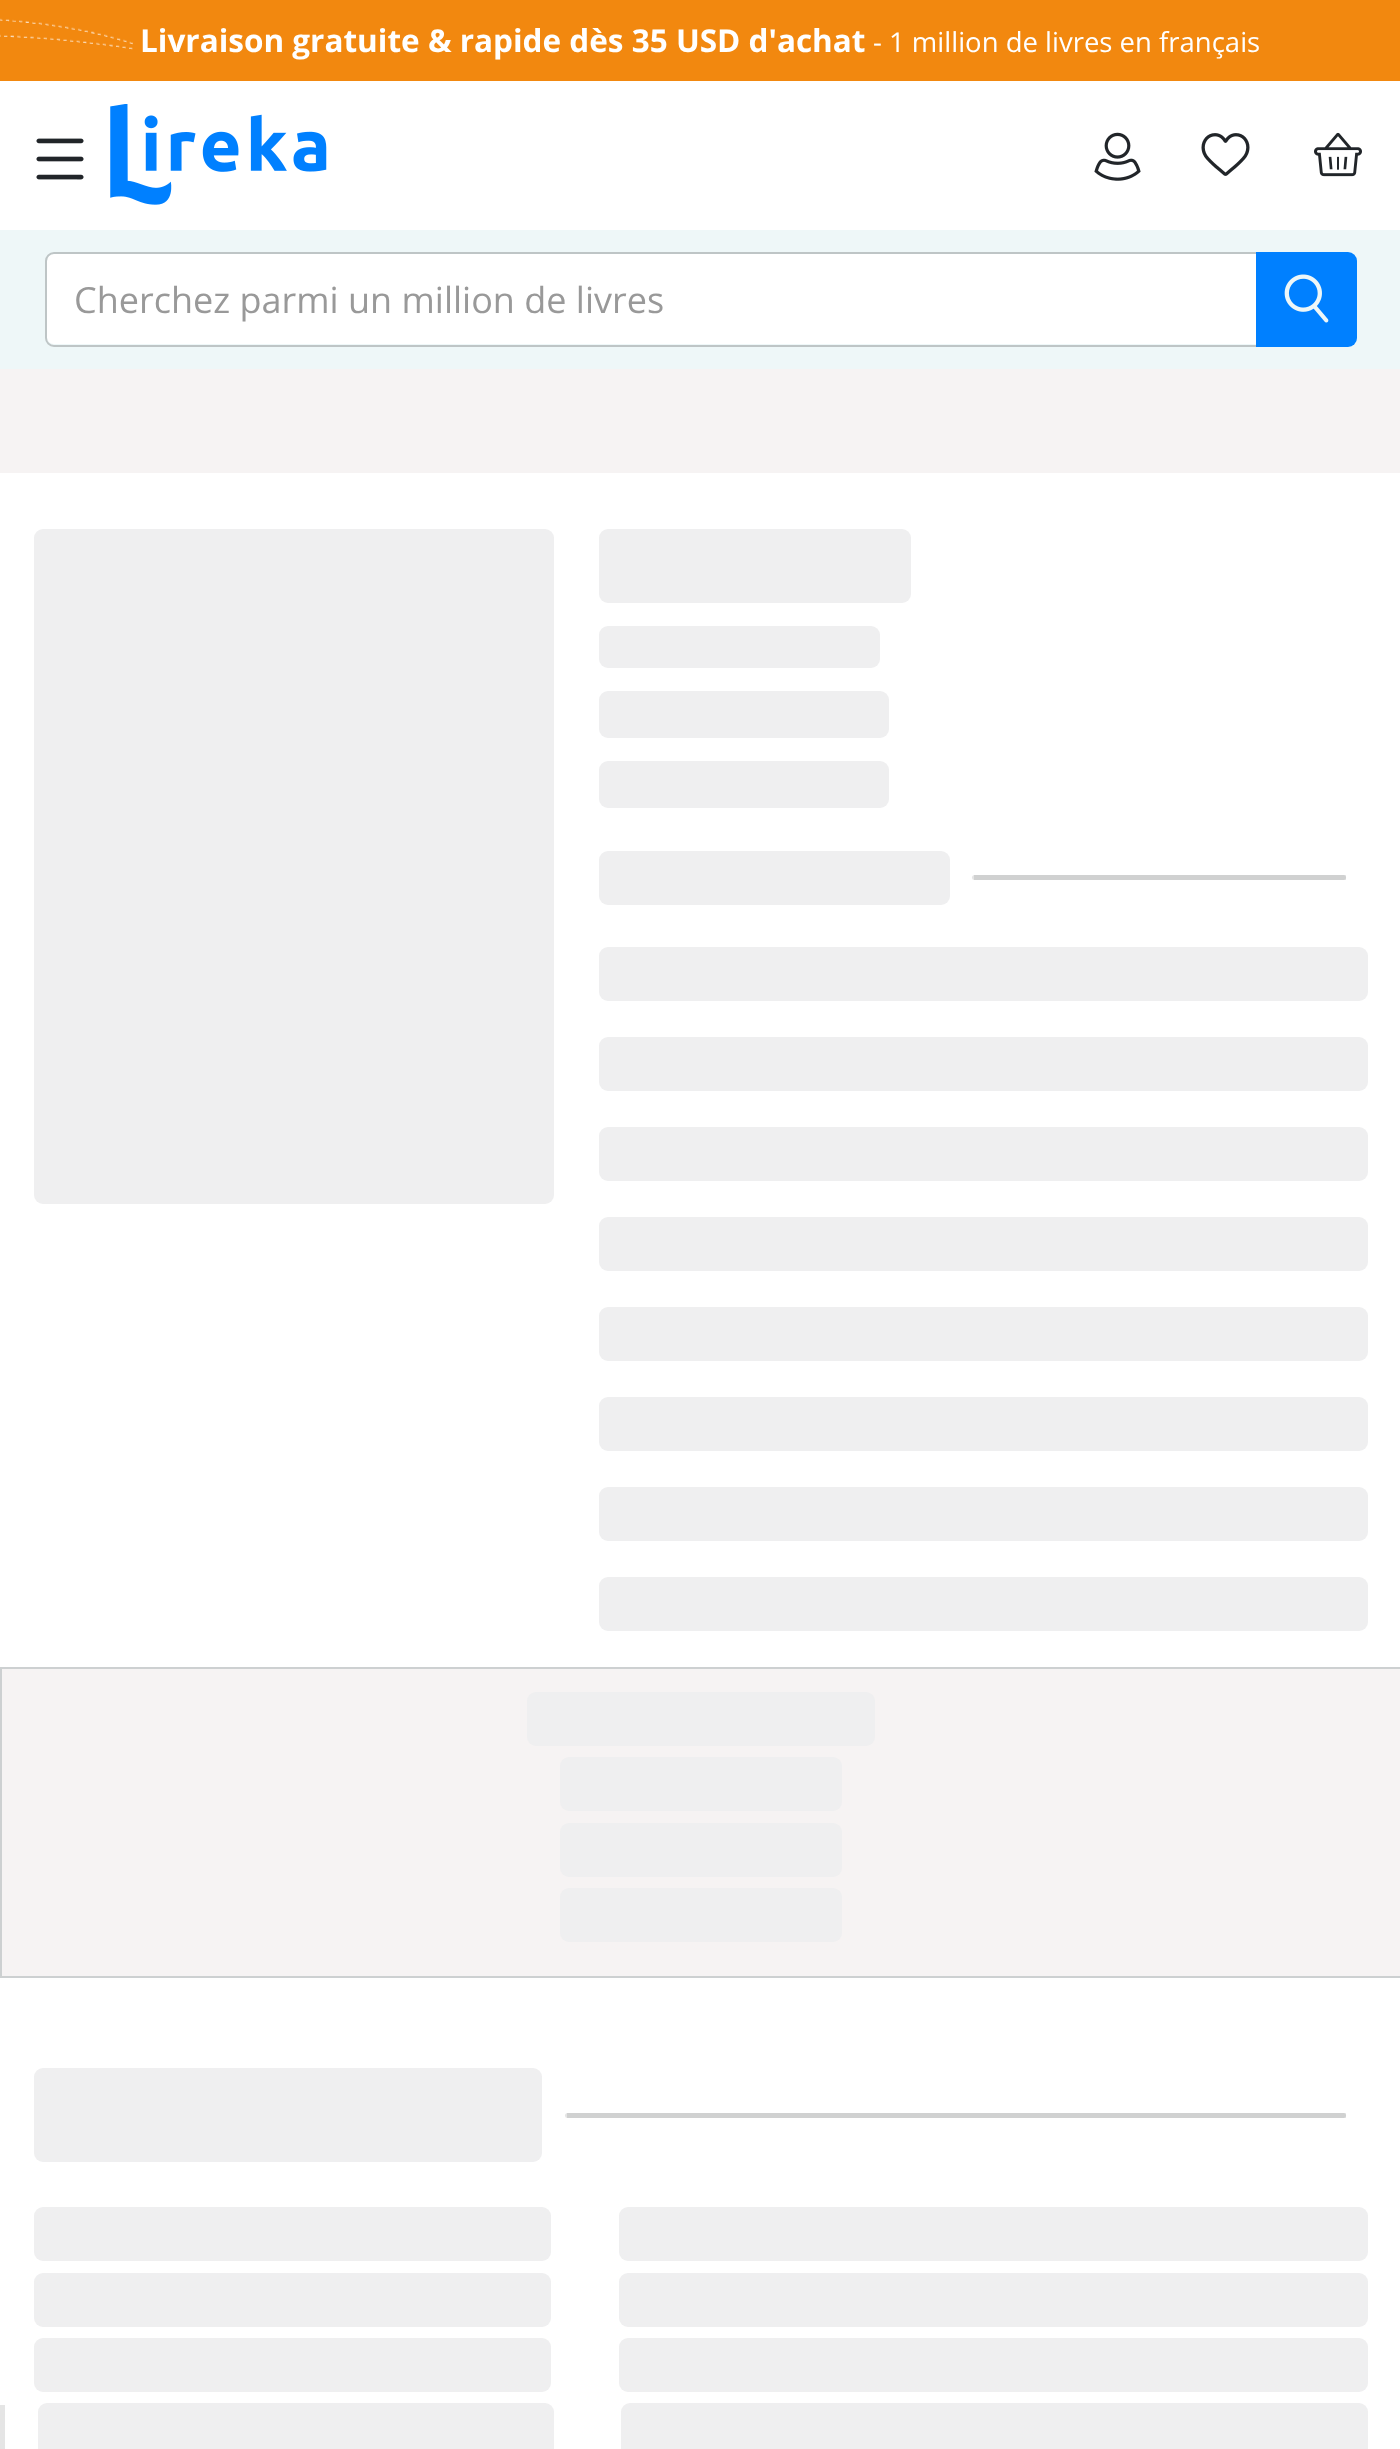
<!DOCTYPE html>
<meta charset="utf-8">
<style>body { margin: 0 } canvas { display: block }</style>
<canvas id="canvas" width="1400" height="2449"></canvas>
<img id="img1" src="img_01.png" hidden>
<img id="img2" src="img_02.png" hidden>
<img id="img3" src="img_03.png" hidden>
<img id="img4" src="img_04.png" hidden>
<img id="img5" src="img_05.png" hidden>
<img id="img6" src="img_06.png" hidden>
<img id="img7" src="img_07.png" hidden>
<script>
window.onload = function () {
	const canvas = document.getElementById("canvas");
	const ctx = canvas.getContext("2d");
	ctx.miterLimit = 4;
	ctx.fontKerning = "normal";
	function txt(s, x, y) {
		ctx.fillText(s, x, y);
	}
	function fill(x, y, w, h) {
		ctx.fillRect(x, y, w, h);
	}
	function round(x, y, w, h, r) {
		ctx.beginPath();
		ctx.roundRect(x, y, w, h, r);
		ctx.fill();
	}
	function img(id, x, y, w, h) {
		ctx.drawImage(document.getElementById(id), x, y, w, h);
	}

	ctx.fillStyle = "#FFFFFF";
	fill(0, 0, 1400, 2449);
	ctx.fillStyle = "#F2880F";
	fill(0, 0, 1400, 81);
	img("img1", 0, 18, 133, 32);
	img("img2", 36, 138, 48, 42);
	img("img3", 110, 104, 217, 101);
	img("img4", 1094, 132, 47, 49);
	img("img5", 1201, 133, 49, 43);
	img("img6", 1314, 132, 48, 45);
	ctx.fillStyle = "#EEF7F8";
	fill(0, 230, 1400, 139);
	ctx.fillStyle = "#FFFFFF";
	ctx.beginPath();
	ctx.roundRect(47, 254, 1209, 90, [7, 0, 0, 7]);
	ctx.fill();
	ctx.beginPath();
	ctx.roundRect(46, 253, 1211, 93, [8, 0, 0, 8]);
	ctx.strokeStyle = "#BEC5C6";
	ctx.lineWidth = 2;
	ctx.stroke();
	ctx.fillStyle = "#0080FF";
	ctx.beginPath();
	ctx.roundRect(1256, 252, 101, 95, [0, 9, 9, 0]);
	ctx.fill();
	img("img7", 1284, 274, 45, 49);
	ctx.fillStyle = "#F6F3F3";
	fill(0, 369, 1400, 104);
	ctx.fillStyle = "#EFEFF0";
	round(34, 529, 520, 675, 9);
	round(599, 529, 312, 74, 9);
	round(599, 626, 281, 42, 9);
	round(599, 691, 290, 47, 9);
	round(599, 761, 290, 47, 9);
	round(599, 851, 351, 54, 9);
	ctx.fillStyle = "#E5E5E5";
	round(972, 875, 374, 5, 2.5);
	ctx.fillStyle = "rgba(33, 37, 41, 0.1)";
	fill(974, 875, 372, 5);
	ctx.fillStyle = "#EFEFF0";
	round(599, 947, 769, 54, 9);
	round(599, 1037, 769, 54, 9);
	round(599, 1127, 769, 54, 9);
	round(599, 1217, 769, 54, 9);
	round(599, 1307, 769, 54, 9);
	round(599, 1397, 769, 54, 9);
	round(599, 1487, 769, 54, 9);
	round(599, 1577, 769, 54, 9);
	ctx.fillStyle = "#F6F3F3";
	ctx.beginPath();
	ctx.rect(1, 1668, 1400, 309);
	ctx.fill();
	ctx.strokeStyle = "#CDD0D1";
	ctx.stroke();
	ctx.fillStyle = "#EFEFF0";
	round(527, 1692, 348, 54, 9);
	round(560, 1757, 282, 54, 9);
	round(560, 1823, 282, 54, 9);
	round(560, 1888, 282, 54, 9);
	round(34, 2068, 508, 94, 9);
	ctx.fillStyle = "#E5E5E5";
	round(565, 2113, 781, 5, 2.5);
	ctx.fillStyle = "rgba(33, 37, 41, 0.1)";
	fill(567, 2113, 779, 5);
	ctx.fillStyle = "#EFEFF0";
	round(34, 2207, 517, 54, 9);
	round(619, 2207, 749, 54, 9);
	round(34, 2273, 517, 54, 9);
	round(619, 2273, 749, 54, 9);
	round(34, 2338, 517, 54, 9);
	round(619, 2338, 749, 54, 9);
	ctx.fillStyle = "#E5E5E5";
	fill(0, 2405, 5, 44);
	ctx.fillStyle = "#EFEFF0";
	round(38, 2403, 516, 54, 9);
	round(621, 2403, 747, 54, 9);
	ctx.font = "bold 31.5px Open Sans";
	ctx.fillStyle = "#FFFFFF";
	txt("Livraison gratuite & rapide dès 35 USD d'achat", 140, 52);
	ctx.font = "27.5px Open Sans";
	txt("- 1 million de livres en français", 873, 52);
	ctx.font = "36px Open Sans";
	ctx.fillStyle = "#999999";
	txt("Cherchez parmi un million de livres", 74, 313);
};
</script>
